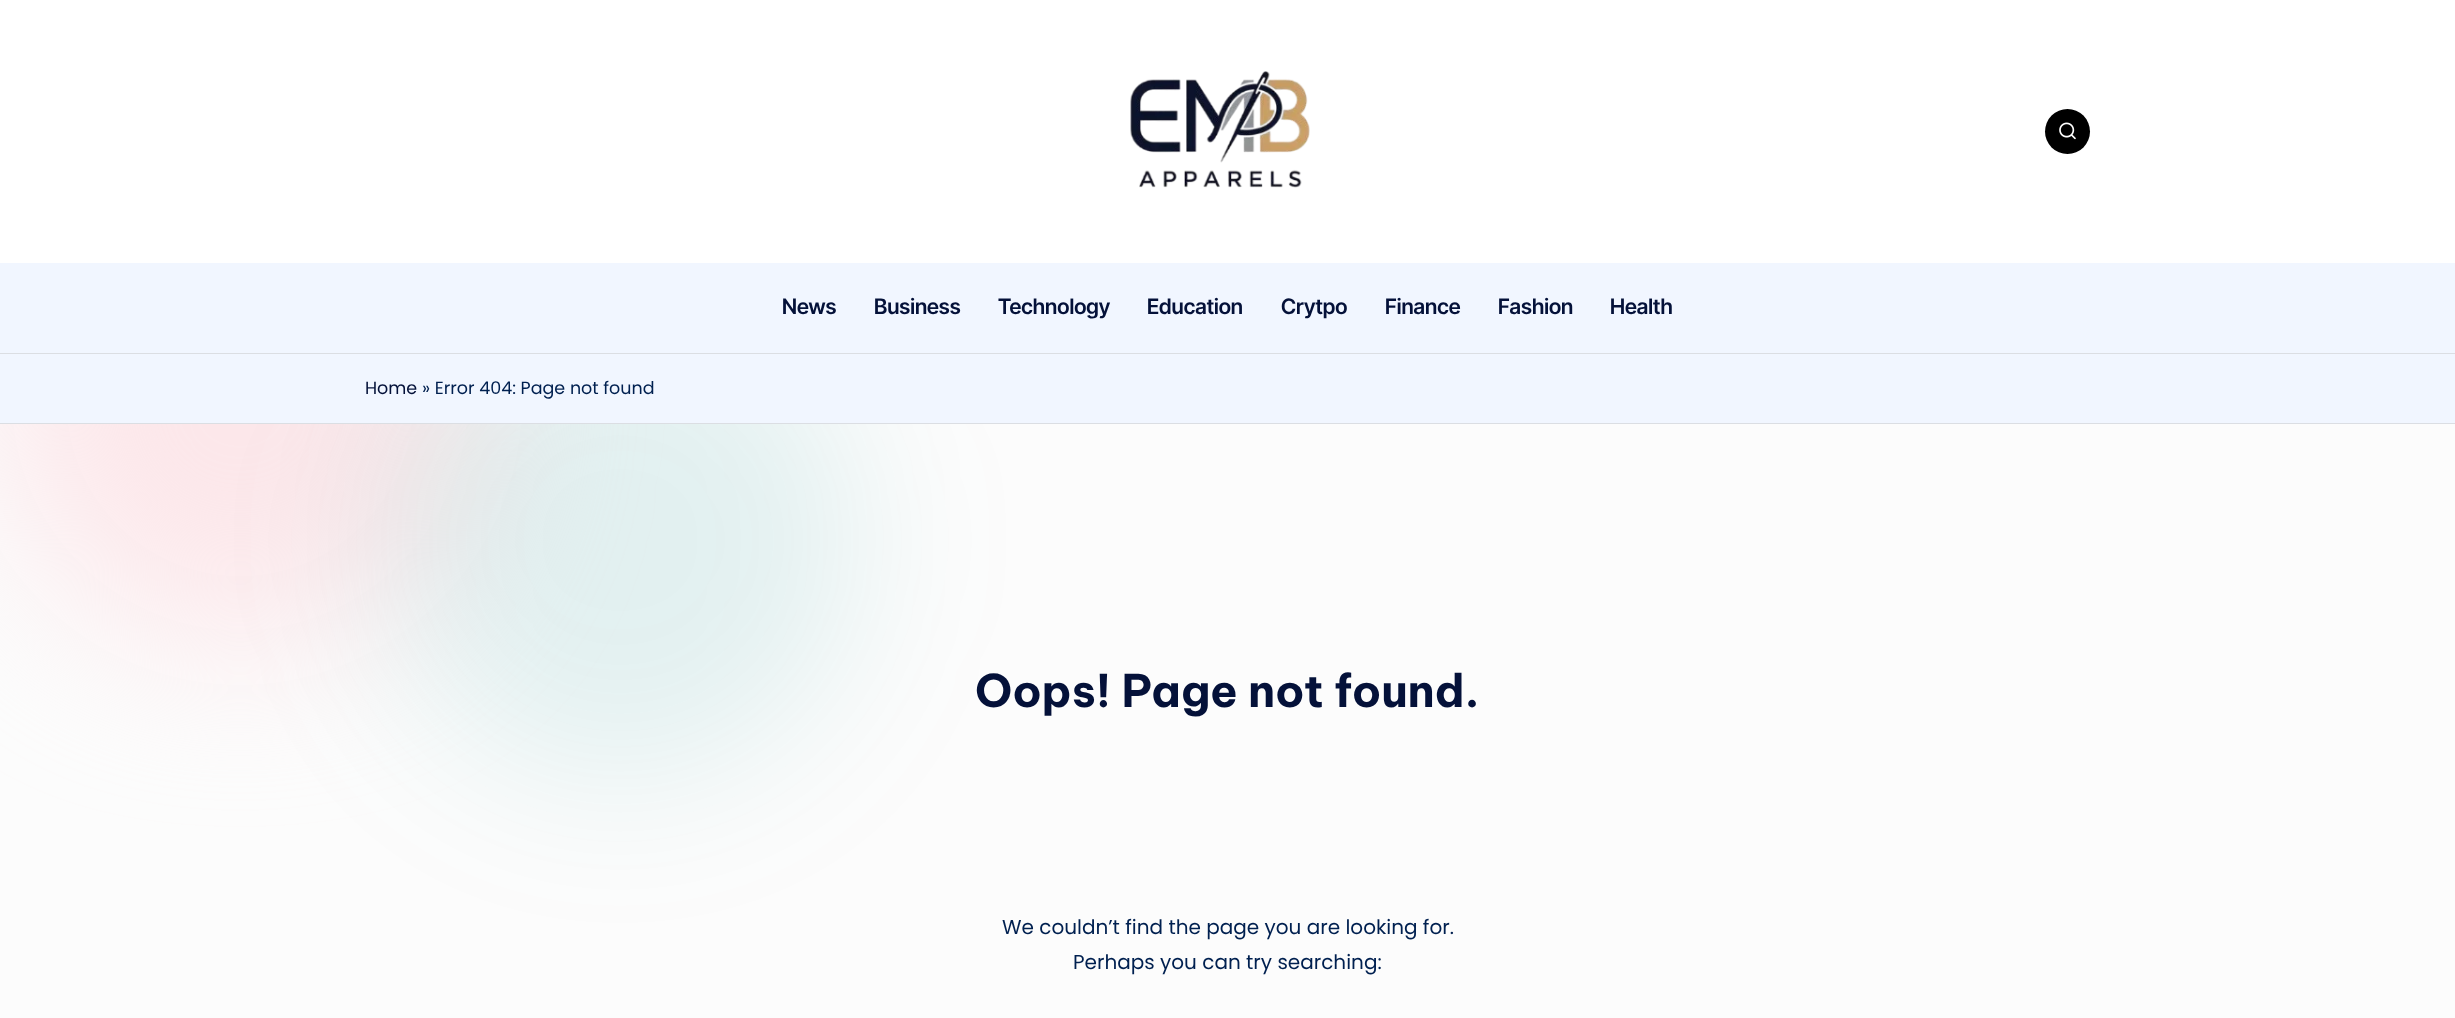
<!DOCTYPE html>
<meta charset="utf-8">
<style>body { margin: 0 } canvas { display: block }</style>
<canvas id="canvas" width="2455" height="1018"></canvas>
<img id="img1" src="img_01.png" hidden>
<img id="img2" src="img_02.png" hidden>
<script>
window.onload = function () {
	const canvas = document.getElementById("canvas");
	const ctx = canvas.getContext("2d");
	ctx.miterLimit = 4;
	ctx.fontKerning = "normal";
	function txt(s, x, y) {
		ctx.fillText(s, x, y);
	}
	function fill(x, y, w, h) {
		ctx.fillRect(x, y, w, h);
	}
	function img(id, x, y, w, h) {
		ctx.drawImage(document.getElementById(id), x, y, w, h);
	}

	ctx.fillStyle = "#FCFCFC";
	fill(0, 0, 2455, 1018);
	ctx.fillStyle = "#FCE7EA";
	ctx.filter = "blur(80px)";
	ctx.beginPath();
	ctx.roundRect(0, 163, 480, 480, 240);
	ctx.fill();
	ctx.filter = "none";
	ctx.fillStyle = "rgba(4, 134, 139, 0.1)";
	ctx.filter = "blur(80px)";
	ctx.beginPath();
	ctx.roundRect(380, 300, 480, 480, 240);
	ctx.fill();
	ctx.filter = "none";
	ctx.fillStyle = "#FFFFFF";
	fill(0, 0, 2455, 263);
	img("img1", 1130, 71, 180, 117);
	ctx.fillStyle = "#000000";
	ctx.beginPath();
	ctx.arc(2067.5, 131.5, 22.5, 0, Math.PI * 2);
	ctx.fill();
	img("img2", 2059, 122, 17, 18);
	ctx.fillStyle = "#F1F6FF";
	fill(0, 263, 2455, 90);
	fill(0, 354, 2455, 69);
	ctx.fillStyle = "#DBDEE3";
	fill(0, 353, 2455, 1);
	fill(0, 423, 2455, 1);
	ctx.font = "600 21.25px Inter Tight";
	ctx.fillStyle = "#041139";
	txt("News", 782, 314);
	txt("Business", 874, 314);
	txt("Technology", 998, 314);
	txt("Education", 1147, 314);
	txt("Crytpo", 1281, 314);
	txt("Finance", 1385, 314);
	txt("Fashion", 1498, 314);
	txt("Health", 1610, 314);
	ctx.font = "17.5px Poppins";
	txt("Home", 365, 394);
	ctx.fillStyle = "#002050";
	txt("» Error 404: Page not found", 422, 394);
	ctx.font = "bold 45px Be Vietnam Pro";
	ctx.fillStyle = "#041139";
	txt("Oops! Page not found.", 975, 707);
	ctx.font = "20px Poppins";
	ctx.fillStyle = "#002050";
	txt("We couldn’t find the page you are looking for.", 1002, 934);
	txt("Perhaps you can try searching:", 1073, 969);
};
</script>
